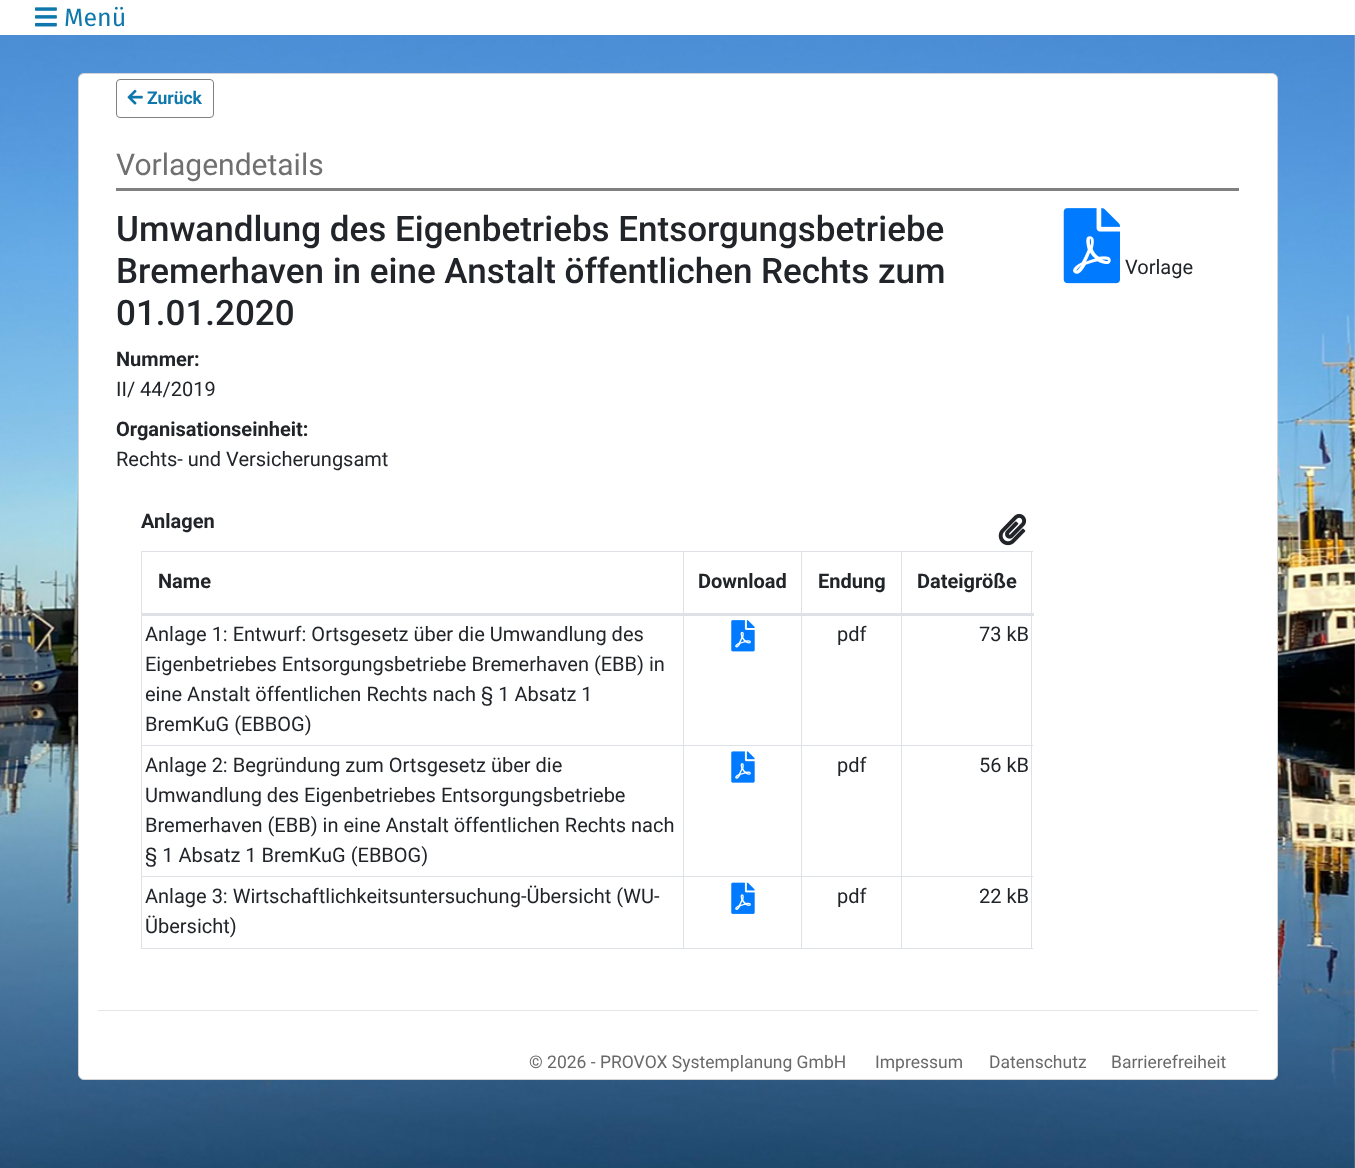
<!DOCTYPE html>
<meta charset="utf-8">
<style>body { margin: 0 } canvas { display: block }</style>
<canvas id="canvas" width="1355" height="1168"></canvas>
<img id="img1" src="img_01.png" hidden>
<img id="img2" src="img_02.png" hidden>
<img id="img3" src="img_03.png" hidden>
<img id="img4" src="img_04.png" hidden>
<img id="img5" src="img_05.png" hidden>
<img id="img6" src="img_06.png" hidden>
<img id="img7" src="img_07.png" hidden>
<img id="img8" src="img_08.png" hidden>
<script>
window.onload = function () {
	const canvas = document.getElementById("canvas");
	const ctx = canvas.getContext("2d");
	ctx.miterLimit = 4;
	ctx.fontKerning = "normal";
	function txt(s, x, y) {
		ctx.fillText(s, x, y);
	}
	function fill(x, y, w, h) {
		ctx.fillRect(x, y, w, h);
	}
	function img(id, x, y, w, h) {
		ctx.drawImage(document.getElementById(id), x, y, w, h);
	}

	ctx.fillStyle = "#FFFFFF";
	fill(0, 0, 1355, 1168);
	img("img1", 0, 35, 1355, 1133);
	img("img2", 35, 7, 22, 20);
	ctx.beginPath();
	ctx.roundRect(78.5, 73.5, 1199, 1006, 5.5);
	ctx.fill();
	ctx.strokeStyle = "#D3D3D3";
	ctx.stroke();
	ctx.beginPath();
	ctx.roundRect(116.5, 79.5, 97, 38, 3.5);
	ctx.strokeStyle = "#808080";
	ctx.stroke();
	img("img3", 127, 89, 16, 16);
	ctx.fillStyle = "#808080";
	fill(116, 188, 1123, 3);
	img("img4", 998, 513, 29, 33);
	ctx.fillStyle = "#DEE2E6";
	fill(1031, 616, 1, 333);
	fill(141, 948, 892, 1);
	fill(141, 616, 1, 333);
	fill(901, 551, 132, 1);
	fill(901, 745, 132, 1);
	fill(901, 876, 132, 1);
	fill(901, 876, 1, 73);
	fill(801, 876, 102, 1);
	fill(901, 745, 1, 133);
	fill(801, 745, 102, 1);
	fill(901, 613, 1, 133);
	fill(901, 551, 1, 63);
	fill(801, 551, 102, 1);
	fill(801, 876, 1, 73);
	fill(683, 876, 120, 1);
	fill(801, 745, 1, 133);
	fill(683, 745, 120, 1);
	fill(801, 613, 1, 133);
	fill(801, 551, 1, 63);
	fill(683, 551, 120, 1);
	fill(683, 876, 1, 73);
	fill(141, 876, 543, 1);
	fill(683, 745, 1, 133);
	fill(141, 745, 543, 1);
	fill(683, 613, 1, 133);
	fill(683, 551, 1, 63);
	fill(141, 551, 543, 1);
	fill(141, 551, 1, 63);
	fill(1031, 551, 1, 63);
	fill(141, 613, 893, 3);
	img("img5", 731, 620, 24, 32);
	img("img6", 731, 751, 24, 32);
	img("img7", 731, 882, 24, 32);
	img("img8", 1063, 208, 57, 76);
	ctx.fillStyle = "#E6E6E6";
	fill(98, 1010, 1160, 1);
	ctx.font = "25px Fira Sans";
	ctx.fillStyle = "#0E78AD";
	txt("Menü", 64, 26);
	ctx.font = "bold 17.5px Roboto";
	txt("Zurück", 147, 104);
	ctx.font = "30px Roboto";
	ctx.fillStyle = "#707070";
	txt("Vorlagendetails", 116, 175);
	ctx.font = "500 35px Roboto";
	ctx.fillStyle = "#212529";
	txt("Umwandlung des Eigenbetriebs Entsorgungsbetriebe", 116, 241);
	txt("Bremerhaven in eine Anstalt öffentlichen Rechts zum", 116, 283);
	txt("01.01.2020", 116, 325);
	ctx.font = "bold 20px Roboto";
	txt("Nummer:", 116, 366);
	ctx.font = "20px Roboto";
	txt("II/ 44/2019", 116, 396);
	ctx.font = "bold 20px Roboto";
	txt("Organisationseinheit:", 116, 436);
	ctx.font = "20px Roboto";
	txt("Rechts- und Versicherungsamt", 116, 466);
	ctx.font = "bold 20px Roboto";
	txt("Anlagen", 141, 528);
	txt("Name", 158, 588);
	txt("Download", 698, 588);
	txt("Endung", 818, 588);
	txt("Dateigröße", 917, 588);
	ctx.font = "20px Roboto";
	txt("Anlage 1: Entwurf: Ortsgesetz über die Umwandlung des", 145, 641);
	txt("Eigenbetriebes Entsorgungsbetriebe Bremerhaven (EBB) in", 145, 671);
	txt("eine Anstalt öffentlichen Rechts nach § 1 Absatz 1", 145, 701);
	txt("BremKuG (EBBOG)", 145, 731);
	txt("pdf", 837, 641);
	txt("73 kB", 979, 641);
	txt("Anlage 2: Begründung zum Ortsgesetz über die", 145, 772);
	txt("Umwandlung des Eigenbetriebes Entsorgungsbetriebe", 145, 802);
	txt("Bremerhaven (EBB) in eine Anstalt öffentlichen Rechts nach", 145, 832);
	txt("§ 1 Absatz 1 BremKuG (EBBOG)", 145, 862);
	txt("pdf", 837, 772);
	txt("56 kB", 979, 772);
	txt("Anlage 3: Wirtschaftlichkeitsuntersuchung-Übersicht (WU-", 145, 903);
	txt("Übersicht)", 145, 933);
	txt("pdf", 837, 903);
	txt("22 kB", 979, 903);
	txt("Vorlage", 1125, 274);
	ctx.font = "17.5px Roboto";
	ctx.fillStyle = "#696969";
	txt("© 2026 - PROVOX Systemplanung GmbH", 529, 1068);
	txt("Impressum", 875, 1068);
	txt("Datenschutz", 989, 1068);
	txt("Barrierefreiheit", 1111, 1068);
};
</script>
